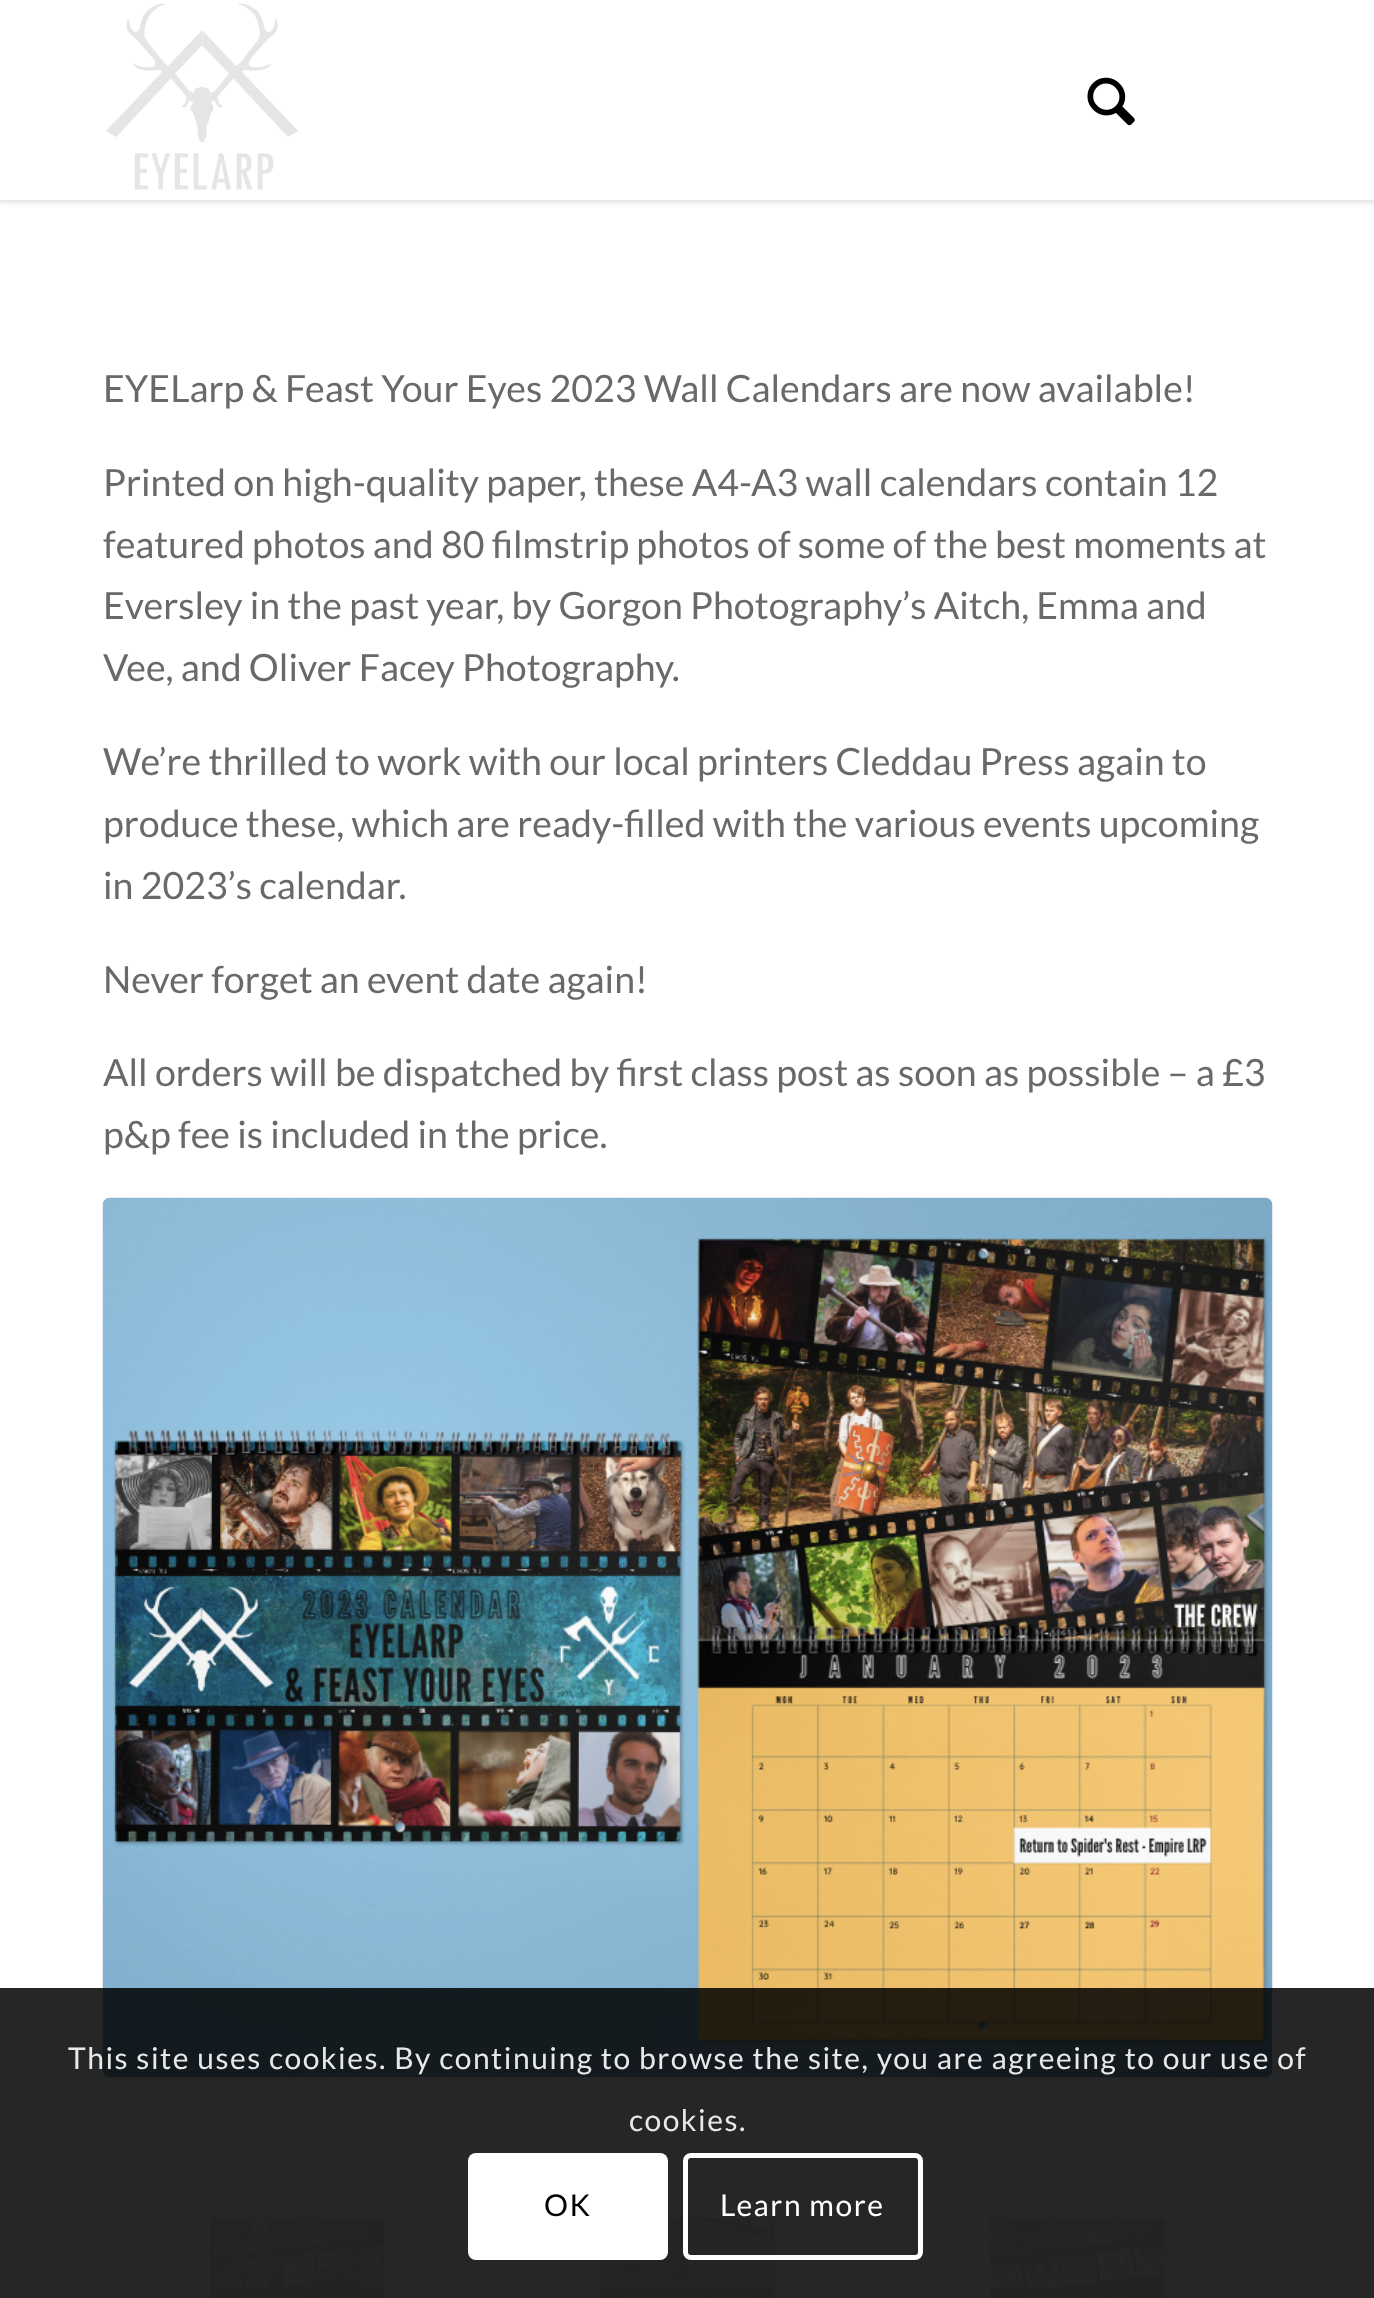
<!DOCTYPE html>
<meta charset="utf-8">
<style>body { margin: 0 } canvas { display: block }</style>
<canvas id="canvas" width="1374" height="2298"></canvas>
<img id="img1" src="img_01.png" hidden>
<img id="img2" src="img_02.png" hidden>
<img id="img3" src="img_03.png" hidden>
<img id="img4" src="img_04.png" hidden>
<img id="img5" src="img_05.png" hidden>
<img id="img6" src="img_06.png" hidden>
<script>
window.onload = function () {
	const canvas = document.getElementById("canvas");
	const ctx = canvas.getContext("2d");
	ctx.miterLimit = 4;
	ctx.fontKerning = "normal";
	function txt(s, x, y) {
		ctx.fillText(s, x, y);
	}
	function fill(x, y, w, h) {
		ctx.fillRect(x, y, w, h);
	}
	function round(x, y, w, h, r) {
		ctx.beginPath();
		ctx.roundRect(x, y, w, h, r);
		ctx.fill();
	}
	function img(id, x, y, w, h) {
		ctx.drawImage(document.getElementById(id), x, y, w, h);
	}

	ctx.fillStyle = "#FFFFFF";
	fill(0, 0, 1374, 2298);
	ctx.fillStyle = "rgba(0, 0, 0, 0.1)";
	ctx.filter = "blur(2.5px)";
	ctx.beginPath();
	ctx.rect(-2, -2, 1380, 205);
	ctx.fill();
	ctx.filter = "none";
	ctx.fillStyle = "#FFFFFF";
	fill(0, 0, 1374, 200);
	img("img1", 106, 3, 192, 187);
	img("img2", 1087, 77, 48, 49);
	img("img3", 102, 1197, 1171, 881);
	ctx.strokeStyle = "#FCFCFC";
	ctx.strokeRect(200.5, 2208.5, 194, 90);
	img("img4", 210, 2218, 175, 80);
	ctx.strokeRect(590.5, 2208.5, 194, 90);
	img("img5", 600, 2218, 175, 80);
	ctx.strokeRect(980.5, 2208.5, 194, 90);
	img("img6", 990, 2218, 175, 80);
	ctx.fillStyle = "rgba(0, 0, 0, 0.85)";
	fill(0, 1988, 1374, 310);
	ctx.fillStyle = "#FFFFFF";
	round(468, 2153, 200, 107, 8);
	ctx.beginPath();
	ctx.roundRect(685.5, 2155.5, 235, 102, 5.5);
	ctx.strokeStyle = "#FFFFFF";
	ctx.lineWidth = 5;
	ctx.stroke();
	ctx.font = "37.5px Lato";
	ctx.fillStyle = "#696969";
	txt("EYELarp & Feast Your Eyes 2023 Wall Calendars are now available!", 103, 402);
	txt("Printed on high-quality paper, these A4-A3 wall calendars contain 12", 103, 496);
	txt("featured photos and 80 filmstrip photos of some of the best moments at", 103, 558);
	txt("Eversley in the past year, by Gorgon Photography’s Aitch, Emma and", 103, 619);
	txt("Vee, and Oliver Facey Photography.", 103, 681);
	txt("We’re thrilled to work with our local printers Cleddau Press again to", 103, 775);
	txt("produce these, which are ready-filled with the various events upcoming", 103, 837);
	txt("in 2023’s calendar.", 103, 899);
	txt("Never forget an event date again!", 103, 993);
	txt("All orders will be dispatched by first class post as soon as possible – a £3", 103, 1086);
	txt("p&p fee is included in the price.", 103, 1148);
	ctx.letterSpacing = "1.5px";
	ctx.font = "30px Lato";
	ctx.fillStyle = "#E8E8E9";
	txt("This site uses cookies. By continuing to browse the site, you are agreeing to our use of", 68, 2069);
	txt("cookies.", 629, 2131);
	ctx.fillStyle = "#000000";
	txt("OK", 544, 2216);
	ctx.fillStyle = "#FFFFFF";
	txt("Learn more", 720, 2216);
};
</script>
